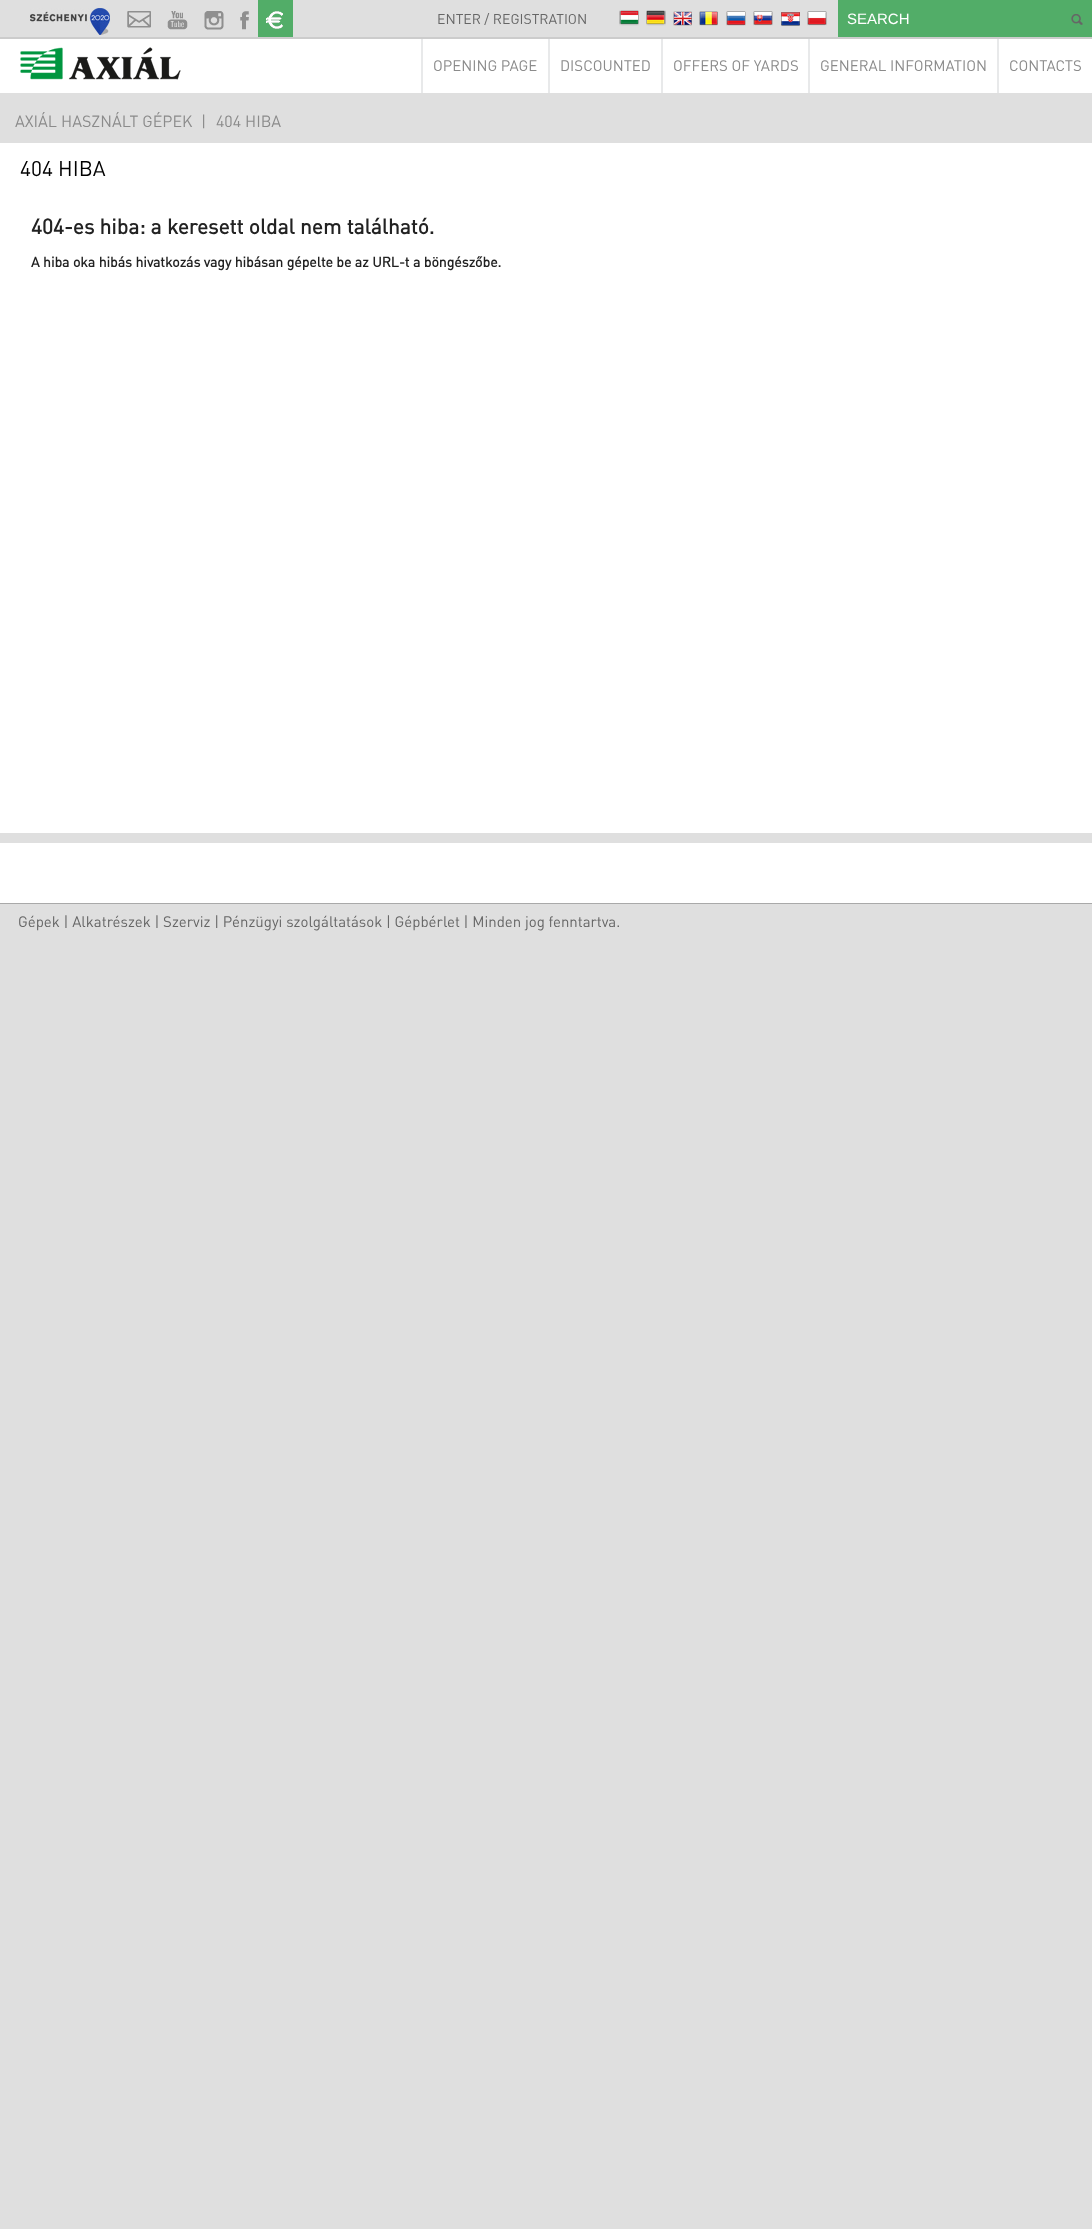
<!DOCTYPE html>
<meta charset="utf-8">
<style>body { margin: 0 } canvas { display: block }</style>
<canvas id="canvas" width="1092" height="2229"></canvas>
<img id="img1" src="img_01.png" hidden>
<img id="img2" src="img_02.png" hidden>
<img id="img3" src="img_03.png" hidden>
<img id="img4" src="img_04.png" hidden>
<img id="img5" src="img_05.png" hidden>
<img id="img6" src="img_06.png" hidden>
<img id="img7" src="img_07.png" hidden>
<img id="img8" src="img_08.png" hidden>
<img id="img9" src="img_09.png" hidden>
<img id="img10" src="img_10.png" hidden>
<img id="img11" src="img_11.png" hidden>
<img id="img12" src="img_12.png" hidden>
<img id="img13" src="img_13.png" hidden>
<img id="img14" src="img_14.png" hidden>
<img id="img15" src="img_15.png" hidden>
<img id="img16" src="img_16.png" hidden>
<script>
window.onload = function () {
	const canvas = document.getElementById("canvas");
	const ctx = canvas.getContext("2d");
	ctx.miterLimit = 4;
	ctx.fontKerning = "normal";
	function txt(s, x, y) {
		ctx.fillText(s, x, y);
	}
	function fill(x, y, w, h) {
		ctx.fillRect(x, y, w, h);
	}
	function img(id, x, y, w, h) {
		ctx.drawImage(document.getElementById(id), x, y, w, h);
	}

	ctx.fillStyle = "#DFDFDF";
	fill(0, 0, 1092, 2229);
	ctx.fillStyle = "#CCCCCC";
	fill(0, 37, 1092, 2);
	img("img1", 30, 8, 80, 27);
	img("img2", 127, 11, 24, 17);
	img("img3", 167, 11, 21, 19);
	img("img4", 204, 11, 20, 19);
	img("img5", 240, 11, 9, 19);
	ctx.fillStyle = "#52AD68";
	fill(258, 0, 35, 37);
	img("img6", 266, 11, 17, 18);
	img("img7", 619, 10, 20, 16);
	img("img8", 646, 10, 20, 16);
	img("img9", 673, 11, 19, 15);
	img("img10", 699, 11, 19, 15);
	img("img11", 726, 11, 20, 15);
	img("img12", 753, 11, 20, 15);
	img("img13", 781, 12, 19, 14);
	img("img14", 807, 11, 20, 15);
	fill(838, 0, 254, 37);
	img("img15", 1071, 14, 12, 11);
	ctx.fillStyle = "#FFFFFF";
	fill(0, 39, 1092, 54);
	img("img16", 20, 47, 161, 33);
	ctx.fillStyle = "#E8E9EA";
	fill(421, 39, 2, 54);
	fill(548, 39, 2, 54);
	fill(661, 39, 2, 54);
	fill(808, 39, 2, 54);
	fill(997, 39, 2, 54);
	ctx.fillStyle = "#FFFFFF";
	fill(0, 143, 1092, 690);
	fill(0, 843, 1092, 60);
	ctx.fillStyle = "#A9A9A9";
	fill(0, 903, 1092, 1);
	ctx.font = "14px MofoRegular";
	ctx.fillStyle = "#666666";
	txt("ENTER / REGISTRATION", 437, 24);
	ctx.font = "15px Liberation Sans";
	ctx.fillStyle = "#FFFFFF";
	txt("SEARCH", 847, 24);
	ctx.font = "15px MofoRegular";
	ctx.fillStyle = "#8B8B8B";
	txt("OPENING PAGE", 433, 71);
	txt("DISCOUNTED", 560, 71);
	txt("OFFERS OF YARDS", 673, 71);
	txt("GENERAL INFORMATION", 820, 71);
	txt("CONTACTS", 1009, 71);
	ctx.font = "16px MofoRegular";
	txt("AXIÁL HASZNÁLT GÉPEK", 15, 127);
	txt("|", 201, 127);
	txt("404 HIBA", 216, 127);
	ctx.font = "21px MofoRegular";
	ctx.fillStyle = "#000000";
	txt("404 HIBA", 20, 176);
	ctx.font = "bold 21px MofoRegular";
	ctx.fillStyle = "#222222";
	txt("404-es hiba: a keresett oldal nem található.", 31, 234);
	ctx.font = "bold 14px MofoRegular";
	txt("A hiba oka hibás hivatkozás vagy hibásan gépelte be az URL-t a böngészőbe.", 31, 267);
	ctx.font = "15px MofoRegular";
	ctx.fillStyle = "#666666";
	txt("Gépek | Alkatrészek | Szerviz | Pénzügyi szolgáltatások | Gépbérlet | Minden jog fenntartva.", 18, 927);
};
</script>
